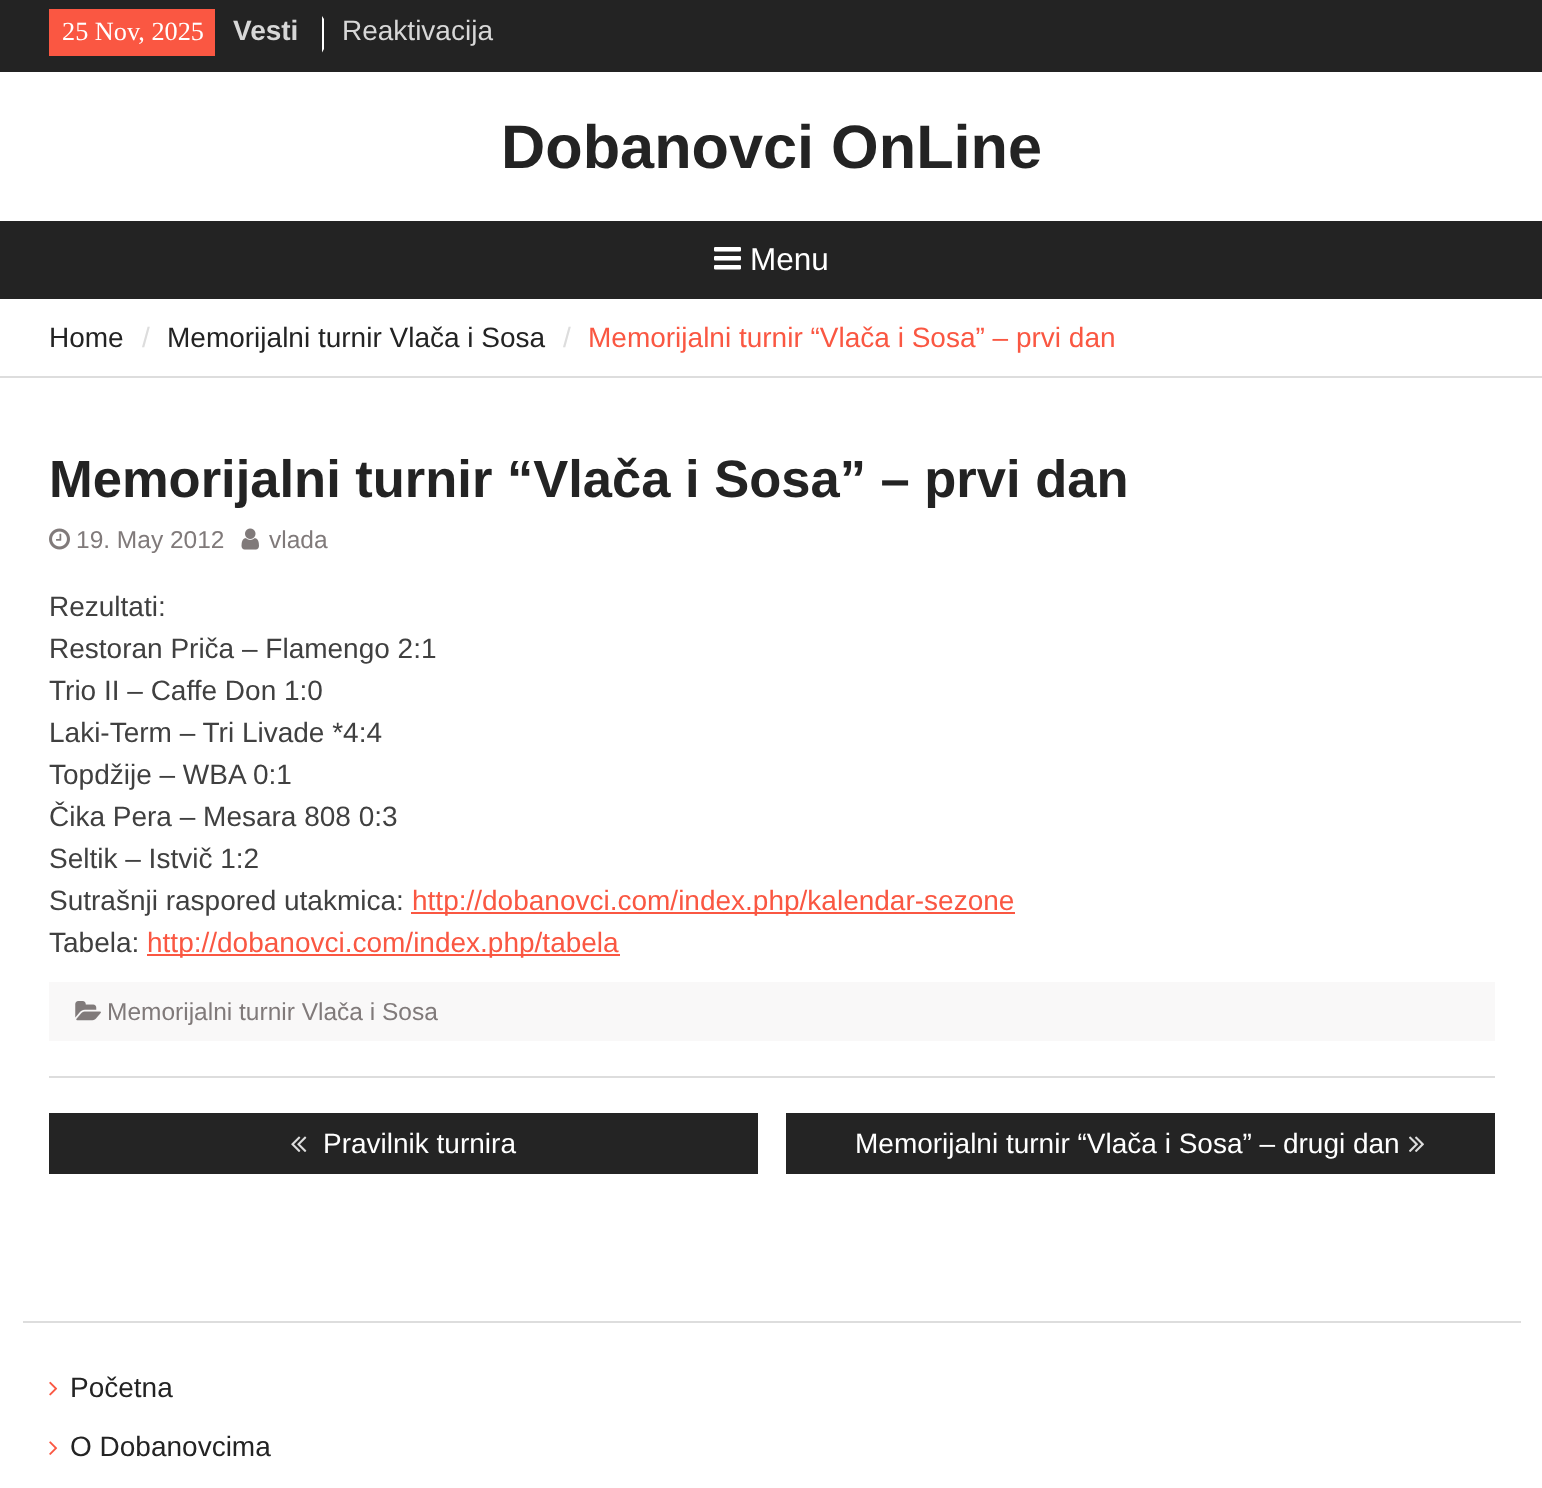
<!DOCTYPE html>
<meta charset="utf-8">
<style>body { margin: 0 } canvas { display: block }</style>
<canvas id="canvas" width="1542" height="1488"></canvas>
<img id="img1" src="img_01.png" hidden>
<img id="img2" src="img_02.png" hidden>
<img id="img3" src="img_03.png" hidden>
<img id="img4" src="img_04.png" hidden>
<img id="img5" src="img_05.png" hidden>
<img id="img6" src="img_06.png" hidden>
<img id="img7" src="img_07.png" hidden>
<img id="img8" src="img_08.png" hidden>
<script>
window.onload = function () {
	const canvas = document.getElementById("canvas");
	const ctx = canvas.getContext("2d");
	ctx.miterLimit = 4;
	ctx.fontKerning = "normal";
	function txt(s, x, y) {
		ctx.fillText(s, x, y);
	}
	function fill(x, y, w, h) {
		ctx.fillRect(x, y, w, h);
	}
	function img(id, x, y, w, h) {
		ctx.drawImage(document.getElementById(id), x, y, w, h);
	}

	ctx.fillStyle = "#FFFFFF";
	fill(0, 0, 1542, 1488);
	ctx.fillStyle = "#232323";
	fill(0, 0, 1542, 72);
	ctx.fillStyle = "#FA5742";
	fill(49, 9, 166, 47);
	ctx.fillStyle = "#FFFFFF";
	ctx.beginPath();
	ctx.moveTo(322, 52.5);
	ctx.lineTo(322, 16);
	ctx.lineTo(324, 19);
	ctx.lineTo(324, 49);
	ctx.closePath();
	ctx.fill();
	ctx.fillStyle = "#232323";
	fill(0, 221, 1542, 78);
	img("img1", 714, 247, 27, 23);
	ctx.fillStyle = "#DDDDDD";
	fill(0, 376, 1542, 2);
	fill(23, 1321, 1498, 2);
	fill(49, 1076, 1446, 2);
	img("img2", 49, 528, 21, 22);
	img("img3", 241, 528, 18, 22);
	ctx.fillStyle = "#FA5742";
	fill(411, 912, 604, 2);
	fill(147, 954, 473, 2);
	ctx.fillStyle = "#F9F8F8";
	fill(49, 982, 1446, 59);
	img("img4", 75, 1001, 26, 20);
	ctx.fillStyle = "#242424";
	fill(49, 1113, 709, 61);
	img("img5", 291, 1136, 16, 16);
	fill(786, 1113, 709, 61);
	img("img6", 1409, 1136, 15, 16);
	img("img7", 49, 1381, 9, 15);
	img("img8", 49, 1441, 9, 14);
	ctx.font = "26.25px Liberation Serif";
	ctx.fillStyle = "#FFFFFF";
	txt("25 Nov, 2025", 62, 40);
	ctx.font = "bold 28px Liberation Sans";
	ctx.fillStyle = "#D7D7D7";
	txt("Vesti", 233, 40);
	ctx.font = "28px Liberation Sans";
	txt("Reaktivacija", 342, 40);
	ctx.font = "bold 61.25px Liberation Sans";
	ctx.fillStyle = "#232323";
	txt("Dobanovci OnLine", 501, 168);
	ctx.font = "31.5px Liberation Sans";
	ctx.fillStyle = "#FFFFFF";
	txt("Menu", 750, 270);
	ctx.font = "28px Liberation Sans";
	ctx.fillStyle = "#232323";
	txt("Home", 49, 347);
	ctx.fillStyle = "#DDDDDD";
	txt("/", 142, 347);
	ctx.fillStyle = "#232323";
	txt("Memorijalni turnir Vlača i Sosa", 167, 347);
	ctx.fillStyle = "#DDDDDD";
	txt("/", 563, 347);
	ctx.fillStyle = "#FA5742";
	txt("Memorijalni turnir “Vlača i Sosa” – prvi dan", 588, 347);
	ctx.font = "bold 52.5px Liberation Sans";
	ctx.fillStyle = "#232323";
	txt("Memorijalni turnir “Vlača i Sosa” – prvi dan", 49, 497);
	ctx.font = "24.5px Liberation Sans";
	ctx.fillStyle = "#807A7A";
	txt("19. May 2012", 76, 548);
	txt("vlada", 269, 548);
	ctx.font = "28px Liberation Sans";
	ctx.fillStyle = "#404040";
	txt("Rezultati:", 49, 616);
	txt("Restoran Priča – Flamengo 2:1", 49, 658);
	txt("Trio II – Caffe Don 1:0", 49, 700);
	txt("Laki-Term – Tri Livade *4:4", 49, 742);
	txt("Topdžije – WBA 0:1", 49, 784);
	txt("Čika Pera – Mesara 808 0:3", 49, 826);
	txt("Seltik – Istvič 1:2", 49, 868);
	txt("Sutrašnji raspored utakmica:", 49, 910);
	ctx.fillStyle = "#FA5742";
	txt("http://dobanovci.com/index.php/kalendar-sezone", 412, 910);
	ctx.fillStyle = "#404040";
	txt("Tabela:", 49, 952);
	ctx.fillStyle = "#FA5742";
	txt("http://dobanovci.com/index.php/tabela", 147, 952);
	ctx.font = "24.5px Liberation Sans";
	ctx.fillStyle = "#807A7A";
	txt("Memorijalni turnir Vlača i Sosa", 107, 1020);
	ctx.font = "28px Liberation Sans";
	ctx.fillStyle = "#FFFFFF";
	txt("Pravilnik turnira", 323, 1153);
	txt("Memorijalni turnir “Vlača i Sosa” – drugi dan", 855, 1153);
	ctx.fillStyle = "#232323";
	txt("Početna", 70, 1397);
	txt("O Dobanovcima", 70, 1456);
};
</script>
